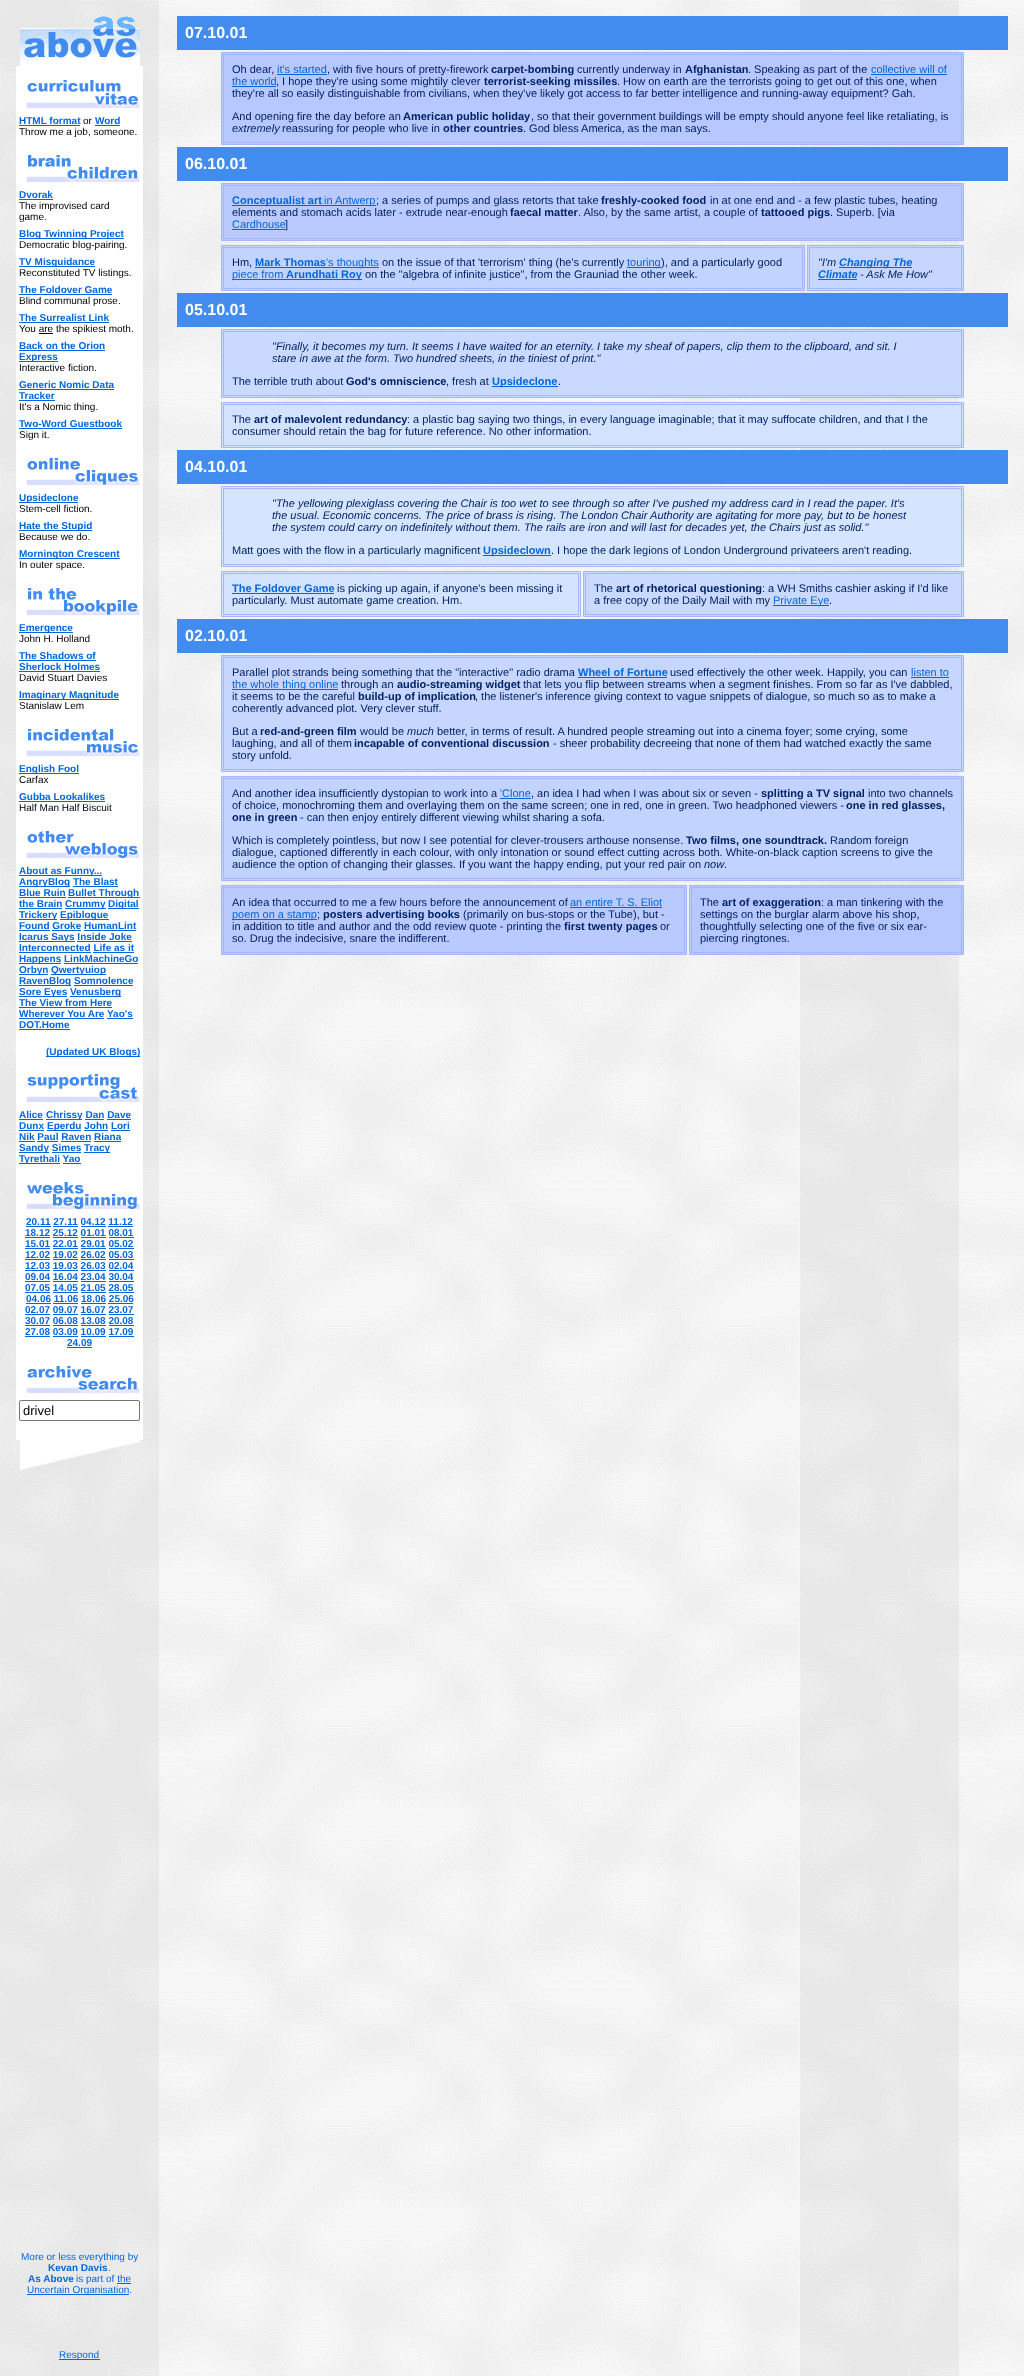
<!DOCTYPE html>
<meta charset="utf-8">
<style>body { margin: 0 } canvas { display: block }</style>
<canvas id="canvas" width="1024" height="2376"></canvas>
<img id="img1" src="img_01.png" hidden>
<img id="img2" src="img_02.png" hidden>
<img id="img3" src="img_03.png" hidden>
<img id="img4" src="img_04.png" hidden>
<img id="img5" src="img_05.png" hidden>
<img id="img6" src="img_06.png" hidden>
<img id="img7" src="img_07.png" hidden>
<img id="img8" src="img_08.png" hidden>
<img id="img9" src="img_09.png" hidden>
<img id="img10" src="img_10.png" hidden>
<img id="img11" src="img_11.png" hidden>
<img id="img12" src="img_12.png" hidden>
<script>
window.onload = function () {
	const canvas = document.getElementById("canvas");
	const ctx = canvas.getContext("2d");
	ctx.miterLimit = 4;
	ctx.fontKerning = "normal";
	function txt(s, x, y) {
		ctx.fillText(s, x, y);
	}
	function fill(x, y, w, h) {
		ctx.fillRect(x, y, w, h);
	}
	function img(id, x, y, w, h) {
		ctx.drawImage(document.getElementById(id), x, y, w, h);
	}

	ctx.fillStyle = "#FFFFFF";
	fill(0, 0, 1024, 2376);
	img("img1", 0, 0, 1024, 2376);
	img("img2", 20, 16, 120, 50);
	fill(16, 66, 127, 1374);
	img("img3", 26, 80, 114, 29);
	ctx.fillStyle = "#0066DD";
	fill(19, 125, 61, 1);
	fill(95, 125, 25, 1);
	img("img4", 26, 155, 114, 28);
	fill(19, 199, 34, 1);
	fill(19, 238, 105, 1);
	fill(19, 266, 76, 1);
	fill(19, 294, 93, 1);
	fill(19, 322, 90, 1);
	ctx.fillStyle = "#000000";
	fill(39, 333, 14, 1);
	ctx.fillStyle = "#0066DD";
	fill(19, 350, 86, 1);
	fill(19, 361, 39, 1);
	fill(19, 389, 95, 1);
	fill(19, 400, 36, 1);
	fill(19, 428, 103, 1);
	img("img5", 26, 458, 114, 28);
	fill(19, 502, 59, 1);
	fill(19, 530, 73, 1);
	fill(19, 558, 101, 1);
	img("img6", 26, 588, 114, 28);
	fill(19, 632, 54, 1);
	fill(19, 660, 77, 1);
	fill(19, 671, 81, 1);
	fill(19, 699, 100, 1);
	img("img7", 26, 729, 114, 28);
	fill(19, 773, 60, 1);
	fill(19, 801, 86, 1);
	img("img8", 26, 831, 114, 28);
	fill(19, 875, 83, 1);
	fill(19, 886, 51, 1);
	fill(73, 886, 45, 1);
	fill(19, 897, 47, 1);
	fill(68, 897, 72, 1);
	fill(19, 908, 43, 1);
	fill(65, 908, 41, 1);
	fill(108, 908, 31, 1);
	fill(19, 919, 38, 1);
	fill(60, 919, 49, 1);
	fill(19, 930, 31, 1);
	fill(52, 930, 29, 1);
	fill(84, 930, 52, 1);
	fill(19, 941, 56, 1);
	fill(77, 941, 55, 1);
	fill(19, 952, 72, 1);
	fill(93, 952, 41, 1);
	fill(19, 963, 42, 1);
	fill(64, 963, 74, 1);
	fill(19, 974, 29, 1);
	fill(51, 974, 55, 1);
	fill(19, 985, 52, 1);
	fill(74, 985, 59, 1);
	fill(19, 996, 48, 1);
	fill(70, 996, 51, 1);
	fill(19, 1007, 93, 1);
	fill(19, 1018, 85, 1);
	fill(107, 1018, 26, 1);
	fill(19, 1029, 51, 1);
	fill(46, 1056, 94, 1);
	img("img9", 26, 1074, 114, 29);
	fill(19, 1119, 24, 1);
	fill(46, 1119, 36, 1);
	fill(85, 1119, 19, 1);
	fill(107, 1119, 24, 1);
	fill(19, 1130, 25, 1);
	fill(47, 1130, 34, 1);
	fill(84, 1130, 24, 1);
	fill(111, 1130, 19, 1);
	fill(19, 1141, 16, 1);
	fill(37, 1141, 21, 1);
	fill(61, 1141, 30, 1);
	fill(94, 1141, 27, 1);
	fill(19, 1152, 30, 1);
	fill(52, 1152, 29, 1);
	fill(84, 1152, 26, 1);
	fill(19, 1163, 41, 1);
	fill(63, 1163, 18, 1);
	img("img10", 26, 1182, 114, 28);
	fill(26, 1226, 25, 1);
	fill(53, 1226, 25, 1);
	fill(81, 1226, 25, 1);
	fill(108, 1226, 25, 1);
	fill(25, 1237, 25, 1);
	fill(53, 1237, 25, 1);
	fill(81, 1237, 25, 1);
	fill(109, 1237, 25, 1);
	fill(25, 1248, 25, 1);
	fill(53, 1248, 25, 1);
	fill(81, 1248, 25, 1);
	fill(109, 1248, 25, 1);
	fill(25, 1259, 25, 1);
	fill(53, 1259, 25, 1);
	fill(81, 1259, 25, 1);
	fill(109, 1259, 25, 1);
	fill(25, 1270, 25, 1);
	fill(53, 1270, 25, 1);
	fill(81, 1270, 25, 1);
	fill(109, 1270, 25, 1);
	fill(25, 1281, 25, 1);
	fill(53, 1281, 25, 1);
	fill(81, 1281, 25, 1);
	fill(109, 1281, 25, 1);
	fill(25, 1292, 25, 1);
	fill(53, 1292, 25, 1);
	fill(81, 1292, 25, 1);
	fill(109, 1292, 25, 1);
	fill(26, 1303, 25, 1);
	fill(53, 1303, 25, 1);
	fill(81, 1303, 25, 1);
	fill(108, 1303, 25, 1);
	fill(25, 1314, 25, 1);
	fill(53, 1314, 25, 1);
	fill(81, 1314, 25, 1);
	fill(109, 1314, 25, 1);
	fill(25, 1325, 25, 1);
	fill(53, 1325, 25, 1);
	fill(81, 1325, 25, 1);
	fill(109, 1325, 25, 1);
	fill(25, 1336, 25, 1);
	fill(53, 1336, 25, 1);
	fill(81, 1336, 25, 1);
	fill(109, 1336, 25, 1);
	fill(67, 1347, 25, 1);
	img("img11", 26, 1366, 114, 28);
	ctx.beginPath();
	ctx.roundRect(19.5, 1400.5, 120, 20, 1.5);
	ctx.strokeStyle = "#767676";
	ctx.stroke();
	img("img12", 20, 1440, 120, 30);
	ctx.fillStyle = "#428CEF";
	fill(177, 16, 831, 34);
	ctx.fillStyle = "#B7C7FF";
	ctx.beginPath();
	ctx.rect(221.5, 52.5, 742, 92);
	ctx.fill();
	ctx.strokeStyle = "#A5B5FF";
	ctx.stroke();
	ctx.strokeRect(223.5, 54.5, 738, 88);
	ctx.fillStyle = "#0066DD";
	fill(277, 74, 50, 1);
	fill(871, 74, 76, 1);
	fill(232, 86, 44, 1);
	ctx.fillStyle = "#428CEF";
	fill(177, 147, 831, 34);
	ctx.fillStyle = "#BACAFF";
	ctx.beginPath();
	ctx.rect(221.5, 183.5, 742, 57);
	ctx.fill();
	ctx.stroke();
	ctx.strokeRect(223.5, 185.5, 738, 53);
	ctx.fillStyle = "#0066DD";
	fill(232, 205, 89, 1);
	fill(321, 205, 55, 1);
	fill(232, 229, 53, 1);
	ctx.fillStyle = "#C3D3FF";
	ctx.beginPath();
	ctx.rect(221.5, 245.5, 583, 45);
	ctx.fill();
	ctx.stroke();
	ctx.strokeRect(223.5, 247.5, 579, 41);
	ctx.fillStyle = "#0066DD";
	fill(255, 267, 124, 1);
	fill(627, 267, 34, 1);
	fill(232, 279, 130, 1);
	ctx.fillStyle = "#C6D6FF";
	ctx.beginPath();
	ctx.rect(807.5, 245.5, 156, 45);
	ctx.fill();
	ctx.stroke();
	ctx.strokeRect(809.5, 247.5, 152, 41);
	ctx.fillStyle = "#0066DD";
	fill(839, 267, 73, 1);
	fill(818, 279, 39, 1);
	ctx.fillStyle = "#428CEF";
	fill(177, 293, 831, 34);
	ctx.fillStyle = "#C9D9FF";
	ctx.beginPath();
	ctx.rect(221.5, 329.5, 742, 68);
	ctx.fill();
	ctx.stroke();
	ctx.strokeRect(223.5, 331.5, 738, 64);
	ctx.fillStyle = "#0066DD";
	fill(492, 386, 66, 1);
	ctx.fillStyle = "#D2E2FF";
	ctx.beginPath();
	ctx.rect(221.5, 402.5, 742, 45);
	ctx.fill();
	ctx.stroke();
	ctx.strokeRect(223.5, 404.5, 738, 41);
	ctx.fillStyle = "#428CEF";
	fill(177, 450, 831, 34);
	ctx.fillStyle = "#D5E5FF";
	ctx.beginPath();
	ctx.rect(221.5, 486.5, 742, 80);
	ctx.fill();
	ctx.stroke();
	ctx.strokeRect(223.5, 488.5, 738, 76);
	ctx.fillStyle = "#0066DD";
	fill(483, 555, 68, 1);
	ctx.fillStyle = "#D2E2FF";
	ctx.beginPath();
	ctx.rect(221.5, 571.5, 359, 45);
	ctx.fill();
	ctx.stroke();
	ctx.strokeRect(223.5, 573.5, 355, 41);
	ctx.fillStyle = "#0066DD";
	fill(232, 593, 102, 1);
	ctx.fillStyle = "#C9D9FF";
	ctx.beginPath();
	ctx.rect(583.5, 571.5, 380, 45);
	ctx.fill();
	ctx.stroke();
	ctx.strokeRect(585.5, 573.5, 376, 41);
	ctx.fillStyle = "#0066DD";
	fill(773, 605, 56, 1);
	ctx.fillStyle = "#428CEF";
	fill(177, 619, 831, 34);
	ctx.fillStyle = "#C6D6FF";
	ctx.beginPath();
	ctx.rect(221.5, 655.5, 742, 116);
	ctx.fill();
	ctx.stroke();
	ctx.strokeRect(223.5, 657.5, 738, 112);
	ctx.fillStyle = "#0066DD";
	fill(578, 677, 89, 1);
	fill(911, 677, 38, 1);
	fill(232, 689, 106, 1);
	ctx.fillStyle = "#C3D3FF";
	ctx.beginPath();
	ctx.rect(221.5, 776.5, 742, 104);
	ctx.fill();
	ctx.stroke();
	ctx.strokeRect(223.5, 778.5, 738, 100);
	ctx.fillStyle = "#0066DD";
	fill(500, 798, 31, 1);
	ctx.fillStyle = "#BACAFF";
	ctx.beginPath();
	ctx.rect(221.5, 885.5, 465, 69);
	ctx.fill();
	ctx.stroke();
	ctx.strokeRect(223.5, 887.5, 461, 65);
	ctx.fillStyle = "#0066DD";
	fill(570, 907, 92, 1);
	fill(232, 919, 85, 1);
	ctx.fillStyle = "#B7C7FF";
	ctx.beginPath();
	ctx.rect(689.5, 885.5, 274, 69);
	ctx.fill();
	ctx.stroke();
	ctx.strokeRect(691.5, 887.5, 270, 65);
	ctx.fillStyle = "#0066DD";
	fill(117, 2283, 14, 1);
	fill(27, 2294, 102, 1);
	fill(59, 2359, 41, 1);
	ctx.font = "bold 10px Liberation Sans";
	txt("HTML format", 19, 124);
	ctx.font = "10px Liberation Sans";
	ctx.fillStyle = "#000000";
	txt("or", 83, 124);
	ctx.font = "bold 10px Liberation Sans";
	ctx.fillStyle = "#0066DD";
	txt("Word", 95, 124);
	ctx.font = "10px Liberation Sans";
	ctx.fillStyle = "#000000";
	txt("Throw me a job, someone.", 19, 135);
	ctx.font = "bold 10px Liberation Sans";
	ctx.fillStyle = "#0066DD";
	txt("Dvorak", 19, 198);
	ctx.font = "10px Liberation Sans";
	ctx.fillStyle = "#000000";
	txt("The improvised card", 19, 209);
	txt("game.", 19, 220);
	ctx.font = "bold 10px Liberation Sans";
	ctx.fillStyle = "#0066DD";
	txt("Blog Twinning Project", 19, 237);
	ctx.font = "10px Liberation Sans";
	ctx.fillStyle = "#000000";
	txt("Democratic blog-pairing.", 19, 248);
	ctx.font = "bold 10px Liberation Sans";
	ctx.fillStyle = "#0066DD";
	txt("TV Misguidance", 19, 265);
	ctx.font = "10px Liberation Sans";
	ctx.fillStyle = "#000000";
	txt("Reconstituted TV listings.", 19, 276);
	ctx.font = "bold 10px Liberation Sans";
	ctx.fillStyle = "#0066DD";
	txt("The Foldover Game", 19, 293);
	ctx.font = "10px Liberation Sans";
	ctx.fillStyle = "#000000";
	txt("Blind communal prose.", 19, 304);
	ctx.font = "bold 10px Liberation Sans";
	ctx.fillStyle = "#0066DD";
	txt("The Surrealist Link", 19, 321);
	ctx.font = "10px Liberation Sans";
	ctx.fillStyle = "#000000";
	txt("You are the spikiest moth.", 19, 332);
	ctx.font = "bold 10px Liberation Sans";
	ctx.fillStyle = "#0066DD";
	txt("Back on the Orion", 19, 349);
	txt("Express", 19, 360);
	ctx.font = "10px Liberation Sans";
	ctx.fillStyle = "#000000";
	txt("Interactive fiction.", 19, 371);
	ctx.font = "bold 10px Liberation Sans";
	ctx.fillStyle = "#0066DD";
	txt("Generic Nomic Data", 19, 388);
	txt("Tracker", 19, 399);
	ctx.font = "10px Liberation Sans";
	ctx.fillStyle = "#000000";
	txt("It's a Nomic thing.", 19, 410);
	ctx.font = "bold 10px Liberation Sans";
	ctx.fillStyle = "#0066DD";
	txt("Two-Word Guestbook", 19, 427);
	ctx.font = "10px Liberation Sans";
	ctx.fillStyle = "#000000";
	txt("Sign it.", 19, 438);
	ctx.font = "bold 10px Liberation Sans";
	ctx.fillStyle = "#0066DD";
	txt("Upsideclone", 19, 501);
	ctx.font = "10px Liberation Sans";
	ctx.fillStyle = "#000000";
	txt("Stem-cell fiction.", 19, 512);
	ctx.font = "bold 10px Liberation Sans";
	ctx.fillStyle = "#0066DD";
	txt("Hate the Stupid", 19, 529);
	ctx.font = "10px Liberation Sans";
	ctx.fillStyle = "#000000";
	txt("Because we do.", 19, 540);
	ctx.font = "bold 10px Liberation Sans";
	ctx.fillStyle = "#0066DD";
	txt("Mornington Crescent", 19, 557);
	ctx.font = "10px Liberation Sans";
	ctx.fillStyle = "#000000";
	txt("In outer space.", 19, 568);
	ctx.font = "bold 10px Liberation Sans";
	ctx.fillStyle = "#0066DD";
	txt("Emergence", 19, 631);
	ctx.font = "10px Liberation Sans";
	ctx.fillStyle = "#000000";
	txt("John H. Holland", 19, 642);
	ctx.font = "bold 10px Liberation Sans";
	ctx.fillStyle = "#0066DD";
	txt("The Shadows of", 19, 659);
	txt("Sherlock Holmes", 19, 670);
	ctx.font = "10px Liberation Sans";
	ctx.fillStyle = "#000000";
	txt("David Stuart Davies", 19, 681);
	ctx.font = "bold 10px Liberation Sans";
	ctx.fillStyle = "#0066DD";
	txt("Imaginary Magnitude", 19, 698);
	ctx.font = "10px Liberation Sans";
	ctx.fillStyle = "#000000";
	txt("Stanislaw Lem", 19, 709);
	ctx.font = "bold 10px Liberation Sans";
	ctx.fillStyle = "#0066DD";
	txt("English Fool", 19, 772);
	ctx.font = "10px Liberation Sans";
	ctx.fillStyle = "#000000";
	txt("Carfax", 19, 783);
	ctx.font = "bold 10px Liberation Sans";
	ctx.fillStyle = "#0066DD";
	txt("Gubba Lookalikes", 19, 800);
	ctx.font = "10px Liberation Sans";
	ctx.fillStyle = "#000000";
	txt("Half Man Half Biscuit", 19, 811);
	ctx.font = "bold 10px Liberation Sans";
	ctx.fillStyle = "#0066DD";
	txt("About as Funny...", 19, 874);
	txt("AngryBlog The Blast", 19, 885);
	txt("Blue Ruin", 19, 896);
	txt("Bullet Through", 68, 896);
	txt("the Brain", 19, 907);
	txt("Crummy", 65, 907);
	txt("Digital", 108, 907);
	txt("Trickery", 19, 918);
	txt("Epiblogue", 60, 918);
	txt("Found Groke HumanLint", 19, 929);
	txt("Icarus Says Inside Joke", 19, 940);
	txt("Interconnected Life as it", 19, 951);
	txt("Happens LinkMachineGo", 19, 962);
	txt("Orbyn", 19, 973);
	txt("Qwertyuiop", 51, 973);
	txt("RavenBlog Somnolence", 19, 984);
	txt("Sore Eyes", 19, 995);
	txt("Venusberg", 70, 995);
	txt("The View from Here", 19, 1006);
	txt("Wherever You Are Yao's", 19, 1017);
	txt("DOT.Home", 19, 1028);
	txt("(Updated UK Blogs)", 46, 1055);
	txt("Alice", 19, 1118);
	txt("Chrissy Dan Dave", 46, 1118);
	txt("Dunx", 19, 1129);
	txt("Eperdu John Lori", 47, 1129);
	txt("Nik Paul Raven Riana", 19, 1140);
	txt("Sandy Simes", 19, 1151);
	txt("Tracy", 84, 1151);
	txt("Tyrethali Yao", 19, 1162);
	txt("20.11 27.11 04.12 11.12", 26, 1225);
	txt("18.12 25.12 01.01 08.01", 25, 1236);
	txt("15.01 22.01 29.01 05.02", 25, 1247);
	txt("12.02 19.02 26.02 05.03", 25, 1258);
	txt("12.03 19.03 26.03 02.04", 25, 1269);
	txt("09.04 16.04 23.04 30.04", 25, 1280);
	txt("07.05 14.05 21.05 28.05", 25, 1291);
	txt("04.06 11.06 18.06 25.06", 26, 1302);
	txt("02.07 09.07 16.07 23.07", 25, 1313);
	txt("30.07 06.08 13.08 20.08", 25, 1324);
	txt("27.08 03.09 10.09 17.09", 25, 1335);
	txt("24.09", 67, 1346);
	ctx.font = "13px Liberation Sans";
	ctx.fillStyle = "#000000";
	txt("drivel", 23, 1415);
	ctx.font = "bold 16px Liberation Sans";
	ctx.fillStyle = "#FFFFFF";
	txt("07.10.01", 185, 38);
	ctx.font = "11px Liberation Sans";
	ctx.fillStyle = "#002266";
	txt("Oh dear,", 232, 73);
	ctx.fillStyle = "#0066DD";
	txt("it's started", 277, 73);
	ctx.fillStyle = "#002266";
	txt(", with five hours of pretty-firework", 327, 73);
	ctx.font = "bold 11px Liberation Sans";
	txt("carpet-bombing", 491, 73);
	ctx.font = "11px Liberation Sans";
	txt("currently underway in", 577, 73);
	ctx.font = "bold 11px Liberation Sans";
	txt("Afghanistan", 685, 73);
	ctx.font = "11px Liberation Sans";
	txt(". Speaking as part of the", 748, 73);
	ctx.fillStyle = "#0066DD";
	txt("collective will of", 871, 73);
	txt("the world", 232, 85);
	ctx.fillStyle = "#002266";
	txt(", I hope they're using some mightily clever", 276, 85);
	ctx.font = "bold 11px Liberation Sans";
	txt("terrorist-seeking missiles", 484, 85);
	ctx.font = "11px Liberation Sans";
	txt(". How on earth are the terrorists going to get out of this one, when", 617, 85);
	txt("they're all so easily distinguishable from civilians, when they've likely got access to far better intelligence and running-away equipment? Gah.", 232, 97);
	txt("And opening fire the day before an", 232, 120);
	ctx.font = "bold 11px Liberation Sans";
	txt("American public holiday", 403, 120);
	ctx.font = "11px Liberation Sans";
	txt(", so that their government buildings will be empty should anyone feel like retaliating, is", 531, 120);
	ctx.font = "italic 11px Liberation Sans";
	txt("extremely", 232, 132);
	ctx.font = "11px Liberation Sans";
	txt("reassuring for people who live in", 282, 132);
	ctx.font = "bold 11px Liberation Sans";
	txt("other countries", 443, 132);
	ctx.font = "11px Liberation Sans";
	txt(". God bless America, as the man says.", 523, 132);
	ctx.font = "bold 16px Liberation Sans";
	ctx.fillStyle = "#FFFFFF";
	txt("06.10.01", 185, 169);
	ctx.font = "bold 11px Liberation Sans";
	ctx.fillStyle = "#0066DD";
	txt("Conceptualist art", 232, 204);
	ctx.font = "11px Liberation Sans";
	txt("in Antwerp", 324, 204);
	ctx.fillStyle = "#002266";
	txt("; a series of pumps and glass retorts that take", 376, 204);
	ctx.font = "bold 11px Liberation Sans";
	txt("freshly-cooked food", 601, 204);
	ctx.font = "11px Liberation Sans";
	txt("in at one end and - a few plastic tubes, heating", 710, 204);
	txt("elements and stomach acids later - extrude near-enough", 232, 216);
	ctx.font = "bold 11px Liberation Sans";
	txt("faecal matter", 510, 216);
	ctx.font = "11px Liberation Sans";
	txt(". Also, by the same artist, a couple of", 578, 216);
	ctx.font = "bold 11px Liberation Sans";
	txt("tattooed pigs", 761, 216);
	ctx.font = "11px Liberation Sans";
	txt(". Superb. [via", 830, 216);
	ctx.fillStyle = "#0066DD";
	txt("Cardhouse", 232, 228);
	ctx.fillStyle = "#002266";
	txt("]", 285, 228);
	txt("Hm,", 232, 266);
	ctx.font = "bold 11px Liberation Sans";
	ctx.fillStyle = "#0066DD";
	txt("Mark Thomas", 255, 266);
	ctx.font = "11px Liberation Sans";
	txt("'s thoughts", 326, 266);
	ctx.fillStyle = "#002266";
	txt("on the issue of that 'terrorism' thing (he's currently", 382, 266);
	ctx.fillStyle = "#0066DD";
	txt("touring", 627, 266);
	ctx.fillStyle = "#002266";
	txt("), and a particularly good", 661, 266);
	ctx.fillStyle = "#0066DD";
	txt("piece from", 232, 278);
	ctx.font = "bold 11px Liberation Sans";
	txt("Arundhati Roy", 286, 278);
	ctx.font = "11px Liberation Sans";
	ctx.fillStyle = "#002266";
	txt("on the \"algebra of infinite justice\", from the Grauniad the other week.", 365, 278);
	ctx.font = "italic 11px Liberation Sans";
	txt("\"I'm", 818, 266);
	ctx.font = "italic bold 11px Liberation Sans";
	ctx.fillStyle = "#0066DD";
	txt("Changing The", 839, 266);
	txt("Climate", 818, 278);
	ctx.font = "italic 11px Liberation Sans";
	ctx.fillStyle = "#002266";
	txt("- Ask Me How\"", 860, 278);
	ctx.font = "bold 16px Liberation Sans";
	ctx.fillStyle = "#FFFFFF";
	txt("05.10.01", 185, 315);
	ctx.font = "italic 11px Liberation Sans";
	ctx.fillStyle = "#002266";
	txt("\"Finally, it becomes my turn. It seems I have waited for an eternity. I take my sheaf of papers, clip them to the clipboard, and sit. I", 272, 350);
	txt("stare in awe at the form. Two hundred sheets, in the tiniest of print.\"", 272, 362);
	ctx.font = "11px Liberation Sans";
	txt("The terrible truth about", 232, 385);
	ctx.font = "bold 11px Liberation Sans";
	txt("God's omniscience", 346, 385);
	ctx.font = "11px Liberation Sans";
	txt(", fresh at", 446, 385);
	ctx.font = "bold 11px Liberation Sans";
	ctx.fillStyle = "#0066DD";
	txt("Upsideclone", 492, 385);
	ctx.font = "11px Liberation Sans";
	ctx.fillStyle = "#002266";
	txt(".", 558, 385);
	txt("The", 232, 423);
	ctx.font = "bold 11px Liberation Sans";
	txt("art of malevolent redundancy", 254, 423);
	ctx.font = "11px Liberation Sans";
	txt(": a plastic bag saying two things, in every language imaginable; that it may suffocate children, and that I the", 407, 423);
	txt("consumer should retain the bag for future reference. No other information.", 232, 435);
	ctx.font = "bold 16px Liberation Sans";
	ctx.fillStyle = "#FFFFFF";
	txt("04.10.01", 185, 472);
	ctx.font = "italic 11px Liberation Sans";
	ctx.fillStyle = "#002266";
	txt("\"The yellowing plexiglass covering the Chair is too wet to see through so after I've pushed my address card in I read the paper. It's", 272, 507);
	txt("the usual. Economic concerns. The price of brass is rising. The London Chair Authority are agitating for more pay, but to be honest", 272, 519);
	txt("the system could carry on indefinitely without them. The rails are iron and will last for decades yet, the Chairs just as solid.\"", 272, 531);
	ctx.font = "11px Liberation Sans";
	txt("Matt goes with the flow in a particularly magnificent", 232, 554);
	ctx.font = "bold 11px Liberation Sans";
	ctx.fillStyle = "#0066DD";
	txt("Upsideclown", 483, 554);
	ctx.font = "11px Liberation Sans";
	ctx.fillStyle = "#002266";
	txt(". I hope the dark legions of London Underground privateers aren't reading.", 551, 554);
	ctx.font = "bold 11px Liberation Sans";
	ctx.fillStyle = "#0066DD";
	txt("The Foldover Game", 232, 592);
	ctx.font = "11px Liberation Sans";
	ctx.fillStyle = "#002266";
	txt("is picking up again, if anyone's been missing it", 337, 592);
	txt("particularly. Must automate game creation. Hm.", 232, 604);
	txt("The", 594, 592);
	ctx.font = "bold 11px Liberation Sans";
	txt("art of rhetorical questioning", 616, 592);
	ctx.font = "11px Liberation Sans";
	txt(": a WH Smiths cashier asking if I'd like", 762, 592);
	txt("a free copy of the Daily Mail with my", 594, 604);
	ctx.fillStyle = "#0066DD";
	txt("Private Eye", 773, 604);
	ctx.fillStyle = "#002266";
	txt(".", 829, 604);
	ctx.font = "bold 16px Liberation Sans";
	ctx.fillStyle = "#FFFFFF";
	txt("02.10.01", 185, 641);
	ctx.font = "11px Liberation Sans";
	ctx.fillStyle = "#002266";
	txt("Parallel plot strands being something that the \"interactive\" radio drama", 232, 676);
	ctx.font = "bold 11px Liberation Sans";
	ctx.fillStyle = "#0066DD";
	txt("Wheel of Fortune", 578, 676);
	ctx.font = "11px Liberation Sans";
	ctx.fillStyle = "#002266";
	txt("used effectively the other week. Happily, you can", 670, 676);
	ctx.fillStyle = "#0066DD";
	txt("listen to", 911, 676);
	txt("the whole thing online", 232, 688);
	ctx.fillStyle = "#002266";
	txt("through an", 341, 688);
	ctx.font = "bold 11px Liberation Sans";
	txt("audio-streaming widget", 397, 688);
	ctx.font = "11px Liberation Sans";
	txt("that lets you flip between streams when a segment finishes. From so far as I've dabbled,", 523, 688);
	txt("it seems to be the careful", 232, 700);
	ctx.font = "bold 11px Liberation Sans";
	txt("build-up of implication", 358, 700);
	ctx.font = "11px Liberation Sans";
	txt(", the listener's inference giving context to vague snippets of dialogue, so much so as to make a", 475, 700);
	txt("coherently advanced plot. Very clever stuff.", 232, 712);
	txt("But a", 232, 735);
	ctx.font = "bold 11px Liberation Sans";
	txt("red-and-green film", 260, 735);
	ctx.font = "11px Liberation Sans";
	txt("would be", 360, 735);
	ctx.font = "italic 11px Liberation Sans";
	txt("much", 407, 735);
	ctx.font = "11px Liberation Sans";
	txt("better, in terms of result. A hundred people streaming out into a cinema foyer; some crying, some", 437, 735);
	txt("laughing, and all of them", 232, 747);
	ctx.font = "bold 11px Liberation Sans";
	txt("incapable of conventional discussion", 354, 747);
	ctx.font = "11px Liberation Sans";
	txt("- sheer probability decreeing that none of them had watched exactly the same", 553, 747);
	txt("story unfold.", 232, 759);
	txt("And another idea insufficiently dystopian to work into a", 232, 797);
	ctx.fillStyle = "#0066DD";
	txt("'Clone", 500, 797);
	ctx.fillStyle = "#002266";
	txt(", an idea I had when I was about six or seven -", 531, 797);
	ctx.font = "bold 11px Liberation Sans";
	txt("splitting a TV signal", 761, 797);
	ctx.font = "11px Liberation Sans";
	txt("into two channels", 868, 797);
	txt("of choice, monochroming them and overlaying them on the same screen; one in red, one in green. Two headphoned viewers -", 232, 809);
	ctx.font = "bold 11px Liberation Sans";
	txt("one in red glasses,", 846, 809);
	txt("one in green", 232, 821);
	ctx.font = "11px Liberation Sans";
	txt("- can then enjoy entirely different viewing whilst sharing a sofa.", 300, 821);
	txt("Which is completely pointless, but now I see potential for clever-trousers arthouse nonsense.", 232, 844);
	ctx.font = "bold 11px Liberation Sans";
	txt("Two films, one soundtrack.", 686, 844);
	ctx.font = "11px Liberation Sans";
	txt("Random foreign", 830, 844);
	txt("dialogue, captioned differently in each colour, with only intonation or sound effect cutting across both. White-on-black caption screens to give the", 232, 856);
	txt("audience the option of changing their glasses. If you want the happy ending, put your red pair on", 232, 868);
	ctx.font = "italic 11px Liberation Sans";
	txt("now", 704, 868);
	ctx.font = "11px Liberation Sans";
	txt(".", 724, 868);
	txt("An idea that occurred to me a few hours before the announcement of", 232, 906);
	ctx.fillStyle = "#0066DD";
	txt("an entire T. S. Eliot", 570, 906);
	txt("poem on a stamp", 232, 918);
	ctx.fillStyle = "#002266";
	txt(";", 317, 918);
	ctx.font = "bold 11px Liberation Sans";
	txt("posters advertising books", 323, 918);
	ctx.font = "11px Liberation Sans";
	txt("(primarily on bus-stops or the Tube), but -", 463, 918);
	txt("in addition to title and author and the odd review quote - printing the", 232, 930);
	ctx.font = "bold 11px Liberation Sans";
	txt("first twenty pages", 564, 930);
	ctx.font = "11px Liberation Sans";
	txt("or", 660, 930);
	txt("so. Drug the indecisive, snare the indifferent.", 232, 942);
	txt("The", 700, 906);
	ctx.font = "bold 11px Liberation Sans";
	txt("art of exaggeration", 722, 906);
	ctx.font = "11px Liberation Sans";
	txt(": a man tinkering with the", 821, 906);
	txt("settings on the burglar alarm above his shop,", 700, 918);
	txt("thoughtfully selecting one of the five or six ear-", 700, 930);
	txt("piercing ringtones.", 700, 942);
	ctx.font = "10px Liberation Sans";
	ctx.fillStyle = "#0066DD";
	txt("More or less everything by", 21, 2260);
	ctx.font = "bold 10px Liberation Sans";
	txt("Kevan Davis", 48, 2271);
	ctx.font = "10px Liberation Sans";
	txt(".", 108, 2271);
	ctx.font = "bold 10px Liberation Sans";
	txt("As Above", 28, 2282);
	ctx.font = "10px Liberation Sans";
	txt("is part of the", 76, 2282);
	txt("Uncertain Organisation.", 27, 2293);
	txt("Respond", 59, 2358);
};
</script>
